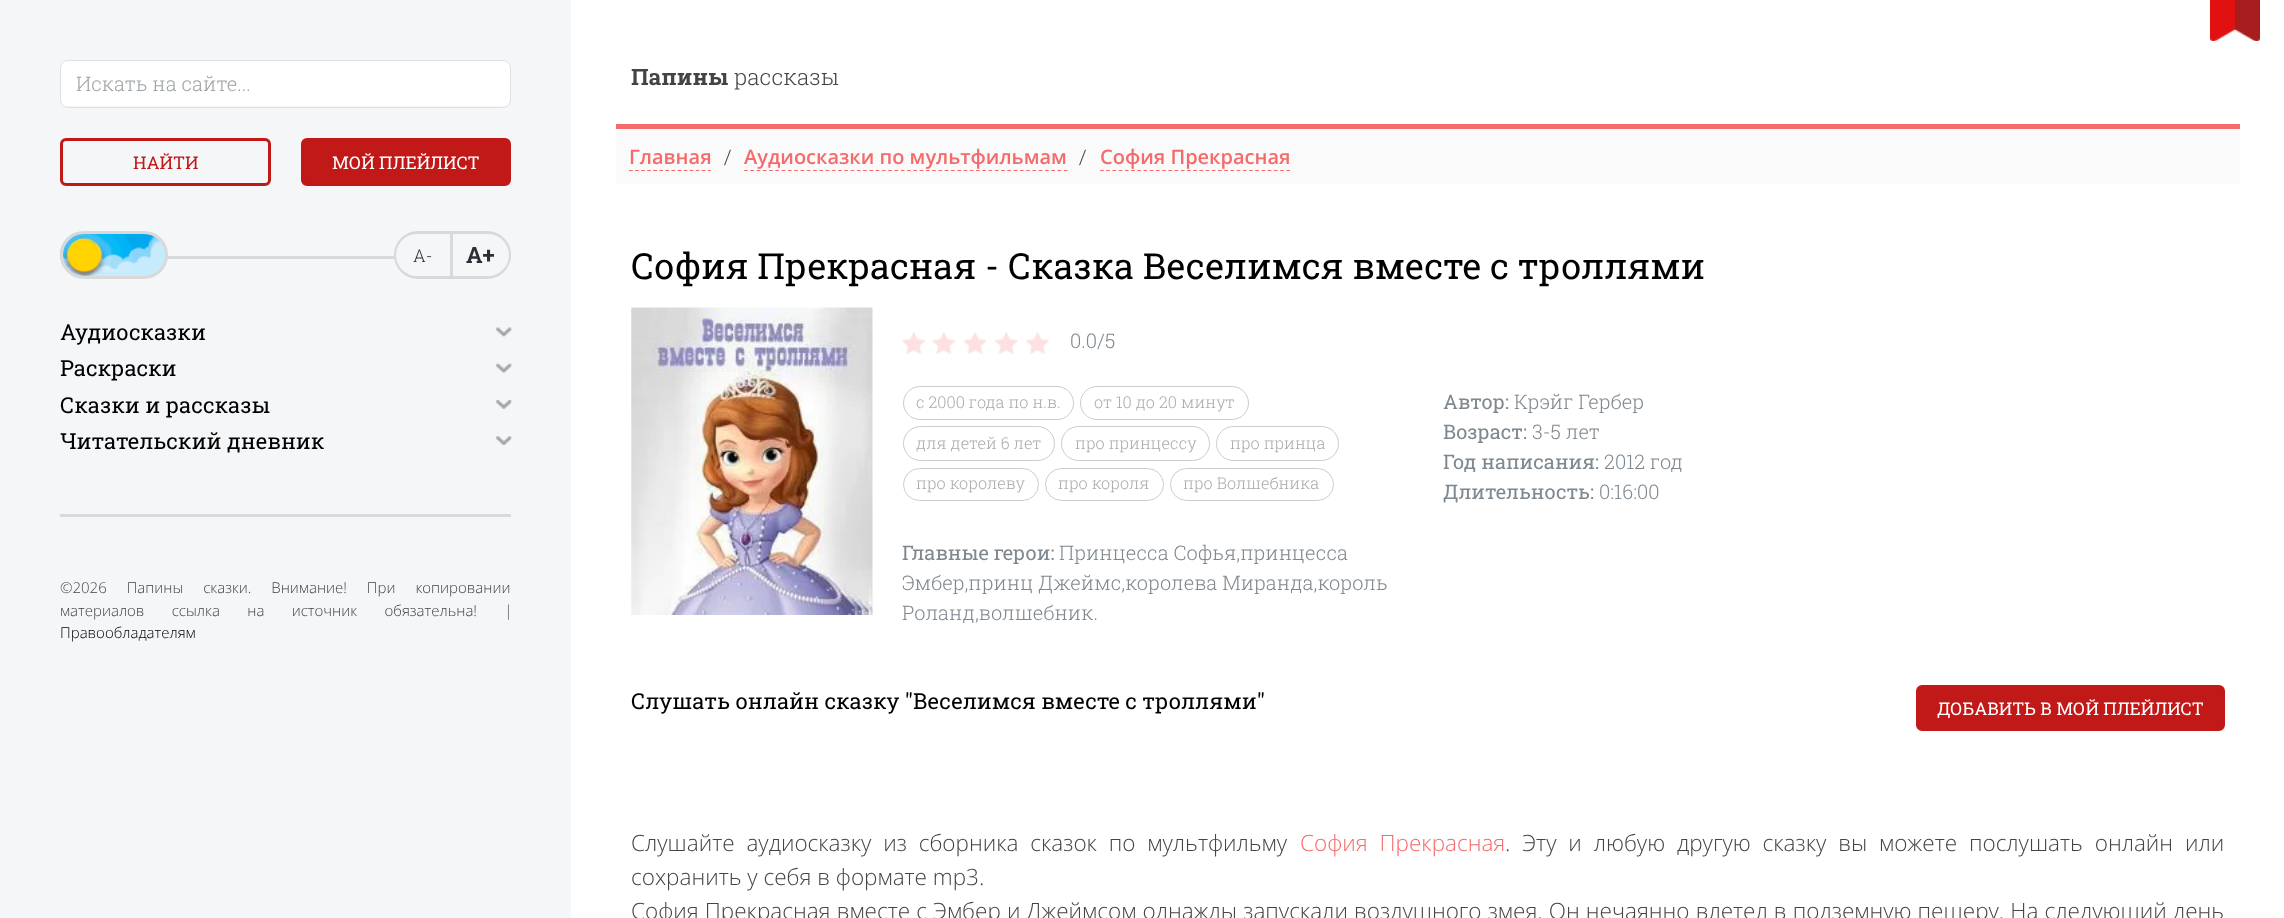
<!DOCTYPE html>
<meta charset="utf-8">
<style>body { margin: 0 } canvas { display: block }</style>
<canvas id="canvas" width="2284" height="918"></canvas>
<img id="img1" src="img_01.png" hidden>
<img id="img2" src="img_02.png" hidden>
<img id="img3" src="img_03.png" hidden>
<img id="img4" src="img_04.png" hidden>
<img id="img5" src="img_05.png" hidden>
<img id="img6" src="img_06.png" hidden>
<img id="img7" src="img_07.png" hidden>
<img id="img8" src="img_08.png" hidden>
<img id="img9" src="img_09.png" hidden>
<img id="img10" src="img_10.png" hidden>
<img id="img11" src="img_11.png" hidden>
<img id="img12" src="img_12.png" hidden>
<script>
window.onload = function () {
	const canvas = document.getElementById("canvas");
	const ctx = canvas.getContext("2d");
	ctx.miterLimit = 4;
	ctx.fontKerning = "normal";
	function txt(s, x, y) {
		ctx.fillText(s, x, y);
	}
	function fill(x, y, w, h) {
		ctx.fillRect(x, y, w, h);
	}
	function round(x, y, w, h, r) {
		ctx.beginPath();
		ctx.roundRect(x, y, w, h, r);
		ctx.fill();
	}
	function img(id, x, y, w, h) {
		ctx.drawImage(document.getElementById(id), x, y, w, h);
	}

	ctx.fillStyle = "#FFFFFF";
	fill(0, 0, 2284, 918);
	img("img1", 2210, 0, 50, 41);
	ctx.fillStyle = "#F5F6F7";
	fill(0, 0, 571, 918);
	ctx.fillStyle = "#FFFFFF";
	round(61, 61, 449, 45, 6);
	ctx.beginPath();
	ctx.roundRect(60.5, 60.5, 450, 47, 7.5);
	ctx.strokeStyle = "#DEE2E6";
	ctx.stroke();
	ctx.beginPath();
	ctx.roundRect(61.5, 139.5, 208, 45, 4.5);
	ctx.strokeStyle = "#C11818";
	ctx.lineWidth = 3;
	ctx.stroke();
	ctx.fillStyle = "#C11818";
	ctx.beginPath();
	ctx.roundRect(302.5, 139.5, 207, 45, 4.5);
	ctx.fill();
	ctx.stroke();
	ctx.fillStyle = "#D9D9D9";
	fill(60, 256, 451, 3);
	img("img2", 60, 232, 105, 45);
	ctx.beginPath();
	ctx.roundRect(61.5, 232.5, 105, 45, 22.5);
	ctx.strokeStyle = "#D9D9D9";
	ctx.stroke();
	ctx.beginPath();
	ctx.roundRect(395.5, 232.5, 114, 45, 22.5);
	ctx.stroke();
	ctx.fillStyle = "#F5F6F7";
	ctx.beginPath();
	ctx.roundRect(396, 234, 57, 42, [21, 0, 0, 21]);
	ctx.fill();
	ctx.fillStyle = "#D9D9D9";
	fill(450, 234, 3, 42);
	ctx.fillStyle = "#F5F6F7";
	ctx.beginPath();
	ctx.roundRect(453, 234, 56, 42, [0, 21, 21, 0]);
	ctx.fill();
	img("img3", 496, 327, 16, 10);
	img("img4", 496, 363, 16, 10);
	img("img5", 496, 400, 16, 9);
	img("img6", 496, 436, 16, 9);
	ctx.fillStyle = "#D9D9D9";
	fill(60, 514, 451, 3);
	ctx.fillStyle = "#F56A6A";
	fill(616, 124, 1624, 5);
	ctx.fillStyle = "#FAFAFA";
	fill(616, 129, 1624, 55);
	ctx.beginPath();
	ctx.moveTo(629, 170.5);
	ctx.lineTo(711, 170.5);
	ctx.strokeStyle = "#F56A6A";
	ctx.lineWidth = 1.2;
	ctx.setLineDash([3.75, 2.31]);
	ctx.stroke();
	ctx.beginPath();
	ctx.moveTo(744, 170.5);
	ctx.lineTo(1067.5, 170.5);
	ctx.setLineDash([3.75, 2.52]);
	ctx.stroke();
	ctx.beginPath();
	ctx.moveTo(1100, 170.5);
	ctx.lineTo(1290, 170.5);
	ctx.setLineDash([3.75, 2.46]);
	ctx.stroke();
	img("img7", 631, 307, 242, 308);
	img("img8", 902, 332, 23, 22);
	img("img9", 932, 332, 23, 22);
	img("img10", 963, 332, 24, 22);
	img("img11", 995, 332, 23, 22);
	img("img12", 1026, 332, 23, 22);
	ctx.beginPath();
	ctx.roundRect(903.5, 386.5, 170, 33, 16.5);
	ctx.strokeStyle = "#CCCCCC";
	ctx.lineWidth = 1;
	ctx.setLineDash([]);
	ctx.stroke();
	ctx.beginPath();
	ctx.roundRect(1080.5, 386.5, 168, 33, 16.5);
	ctx.stroke();
	ctx.beginPath();
	ctx.roundRect(903.5, 426.5, 151, 34, 17);
	ctx.stroke();
	ctx.beginPath();
	ctx.roundRect(1061.5, 426.5, 148, 34, 17);
	ctx.stroke();
	ctx.beginPath();
	ctx.roundRect(1216.5, 426.5, 122, 34, 17);
	ctx.stroke();
	ctx.beginPath();
	ctx.roundRect(903.5, 468.5, 135, 32, 16);
	ctx.stroke();
	ctx.beginPath();
	ctx.roundRect(1045.5, 468.5, 118, 32, 16);
	ctx.stroke();
	ctx.beginPath();
	ctx.roundRect(1170.5, 468.5, 163, 32, 16);
	ctx.stroke();
	ctx.fillStyle = "#C11818";
	ctx.beginPath();
	ctx.roundRect(1917.5, 686.5, 306, 43, 4.5);
	ctx.fill();
	ctx.strokeStyle = "#C11818";
	ctx.lineWidth = 3;
	ctx.stroke();
	ctx.font = "300 20px Roboto Slab";
	ctx.fillStyle = "#9FA3A6";
	txt("Искать на сайте...", 76, 91);
	ctx.font = "17.5px Roboto Slab";
	ctx.fillStyle = "#C11818";
	txt("НАЙТИ", 133, 169);
	ctx.fillStyle = "#FFFFFF";
	txt("МОЙ ПЛЕЙЛИСТ", 332, 169);
	ctx.font = "300 17.5px Roboto Slab";
	ctx.fillStyle = "#2D2F37";
	txt("А-", 413, 262);
	ctx.font = "bold 22.5px Roboto Slab";
	txt("А+", 466, 263);
	ctx.font = "22px Roboto Slab";
	ctx.fillStyle = "#000000";
	txt("Аудиосказки", 60, 340);
	txt("Раскраски", 60, 376);
	txt("Сказки и рассказы", 60, 413);
	txt("Читательский дневник", 60, 449);
	ctx.wordSpacing = "16px";
	ctx.font = "300 15px Open Sans";
	ctx.fillStyle = "#444444";
	txt("©2026 Папины сказки. Внимание! При копировании", 60, 593);
	ctx.wordSpacing = "23.5px";
	txt("материалов ссылка на источник обязательна! |", 60, 616);
	ctx.wordSpacing = "0px";
	ctx.fillStyle = "#000000";
	txt("Правообладателям", 60, 638);
	ctx.font = "bold 22.5px Roboto Slab";
	ctx.fillStyle = "#444444";
	txt("Папины", 631, 85);
	ctx.font = "300 22.5px Roboto Slab";
	txt("рассказы", 734, 85);
	ctx.font = "600 20px Open Sans";
	ctx.fillStyle = "#F56A6A";
	txt("Главная", 629, 164);
	ctx.font = "300 20px Roboto Slab";
	ctx.fillStyle = "#444444";
	txt("/", 724, 164);
	ctx.font = "600 20px Open Sans";
	ctx.fillStyle = "#F56A6A";
	txt("Аудиосказки по мультфильмам", 744, 164);
	ctx.font = "300 20px Roboto Slab";
	ctx.fillStyle = "#444444";
	txt("/", 1079, 164);
	ctx.font = "600 20px Open Sans";
	ctx.fillStyle = "#F56A6A";
	txt("София Прекрасная", 1100, 164);
	ctx.font = "36px Roboto Slab";
	ctx.fillStyle = "#000000";
	txt("София Прекрасная - Сказка Веселимся вместе с троллями", 631, 279);
	ctx.font = "300 20px Roboto Slab";
	ctx.fillStyle = "#7F888F";
	txt("0.0/5", 1070, 348);
	ctx.font = "300 16.25px Roboto Slab";
	ctx.fillStyle = "#AAAAAA";
	txt("c 2000 года по н.в.", 916, 408);
	txt("от 10 до 20 минут", 1094, 408);
	txt("для детей 6 лет", 916, 449);
	txt("про принцессу", 1075, 449);
	txt("про принца", 1230, 449);
	txt("про королеву", 916, 489);
	txt("про короля", 1058, 489);
	txt("про Волшебника", 1183, 489);
	ctx.font = "20px Roboto Slab";
	ctx.fillStyle = "#7F888F";
	txt("Главные герои:", 902, 560);
	ctx.font = "300 20px Roboto Slab";
	txt("Принцесса Софья,принцесса", 1059, 560);
	txt("Эмбер,принц Джеймс,королева Миранда,король", 902, 590);
	txt("Роланд,волшебник.", 902, 620);
	ctx.font = "20px Roboto Slab";
	txt("Автор:", 1443, 409);
	ctx.font = "300 20px Roboto Slab";
	txt("Крэйг Гербер", 1514, 409);
	ctx.font = "20px Roboto Slab";
	txt("Возраст:", 1443, 439);
	ctx.font = "300 20px Roboto Slab";
	txt("3-5 лет", 1532, 439);
	ctx.font = "20px Roboto Slab";
	txt("Год написания:", 1443, 469);
	ctx.font = "300 20px Roboto Slab";
	txt("2012 год", 1604, 469);
	ctx.font = "20px Roboto Slab";
	txt("Длительность:", 1443, 499);
	ctx.font = "300 20px Roboto Slab";
	txt("0:16:00", 1599, 499);
	ctx.font = "22px Roboto Slab";
	ctx.fillStyle = "#000000";
	txt("Слушать онлайн сказку \"Веселимся вместе с троллями\"", 631, 709);
	ctx.font = "17.5px Roboto Slab";
	ctx.fillStyle = "#FFFFFF";
	txt("ДОБАВИТЬ В МОЙ ПЛЕЙЛИСТ", 1937, 715);
	ctx.wordSpacing = "6px";
	ctx.font = "300 22.5px Open Sans";
	ctx.fillStyle = "#444444";
	txt("Слушайте аудиосказку из сборника сказок по мультфильму", 631, 851);
	ctx.fillStyle = "#F56A6A";
	txt("София Прекрасная", 1300, 851);
	ctx.fillStyle = "#444444";
	txt(". Эту и любую другую сказку вы можете послушать онлайн или", 1505, 851);
	ctx.wordSpacing = "0px";
	txt("сохранить у себя в формате mp3.", 631, 885);
	ctx.wordSpacing = "0.3px";
	txt("София Прекрасная вместе с Эмбер и Джеймсом однажды запускали воздушного змея. Он нечаянно влетел в подземную пещеру. На следующий день", 631, 919);
};
</script>
